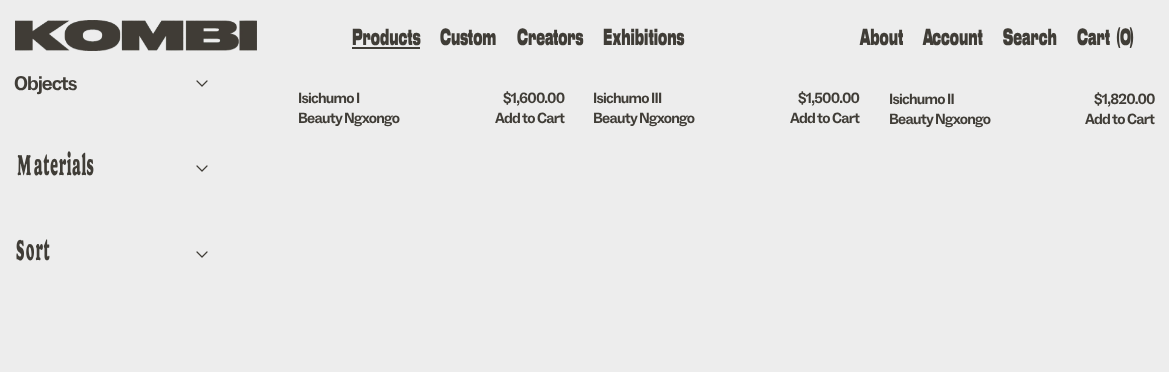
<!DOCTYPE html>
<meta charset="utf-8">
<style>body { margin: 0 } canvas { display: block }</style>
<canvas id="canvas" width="1169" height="372"></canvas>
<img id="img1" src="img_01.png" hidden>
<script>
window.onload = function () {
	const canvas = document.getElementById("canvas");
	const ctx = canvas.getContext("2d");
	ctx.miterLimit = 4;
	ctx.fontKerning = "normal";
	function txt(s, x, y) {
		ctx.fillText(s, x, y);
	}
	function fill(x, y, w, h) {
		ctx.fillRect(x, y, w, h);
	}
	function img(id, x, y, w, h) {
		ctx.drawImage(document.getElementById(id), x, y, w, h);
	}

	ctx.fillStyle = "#EDEDED";
	fill(0, 0, 1169, 372);
	img("img1", 15, 20, 242, 31);
	ctx.fillStyle = "#403D37";
	fill(352, 47, 68, 2);
	ctx.beginPath();
	ctx.moveTo(207, 81);
	ctx.lineTo(202, 86);
	ctx.lineTo(197, 81);
	ctx.strokeStyle = "#403D37";
	ctx.lineWidth = 1.2;
	ctx.lineCap = "round";
	ctx.lineJoin = "round";
	ctx.stroke();
	ctx.beginPath();
	ctx.moveTo(207, 166);
	ctx.lineTo(202, 171);
	ctx.lineTo(197, 166);
	ctx.stroke();
	ctx.beginPath();
	ctx.moveTo(207, 252);
	ctx.lineTo(202, 257);
	ctx.lineTo(197, 252);
	ctx.stroke();
	ctx.font = "900 22px 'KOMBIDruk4'";
	txt("Products", 352, 45);
	txt("Custom", 440, 45);
	txt("Creators", 517, 45);
	txt("Exhibitions", 603, 45);
	txt("About", 860, 45);
	txt("Account", 923, 45);
	txt("Search", 1003, 45);
	txt("Cart (0", 1077, 45);
	txt(")", 1130, 45);
	ctx.letterSpacing = "-1px";
	ctx.font = "bold 20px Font";
	txt("Objects", 14, 90);
	ctx.letterSpacing = "-2.75px";
	ctx.font = "20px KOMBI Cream";
	txt("Materials", 14, 175);
	txt("Sort", 14, 260);
	ctx.letterSpacing = "-0.75px";
	ctx.font = "bold 15px Font";
	txt("Isichumo I", 298, 103);
	txt("Beauty Ngxongo", 298, 123);
	txt("$1,600.00", 503, 103);
	txt("Add to Cart", 495, 123);
	txt("Isichumo III", 593, 103);
	txt("Beauty Ngxongo", 593, 123);
	txt("$1,500.00", 798, 103);
	txt("Add to Cart", 790, 123);
	txt("Isichumo II", 889, 104);
	txt("Beauty Ngxongo", 889, 124);
	txt("$1,820.00", 1094, 104);
	txt("Add to Cart", 1085, 124);
};
</script>
